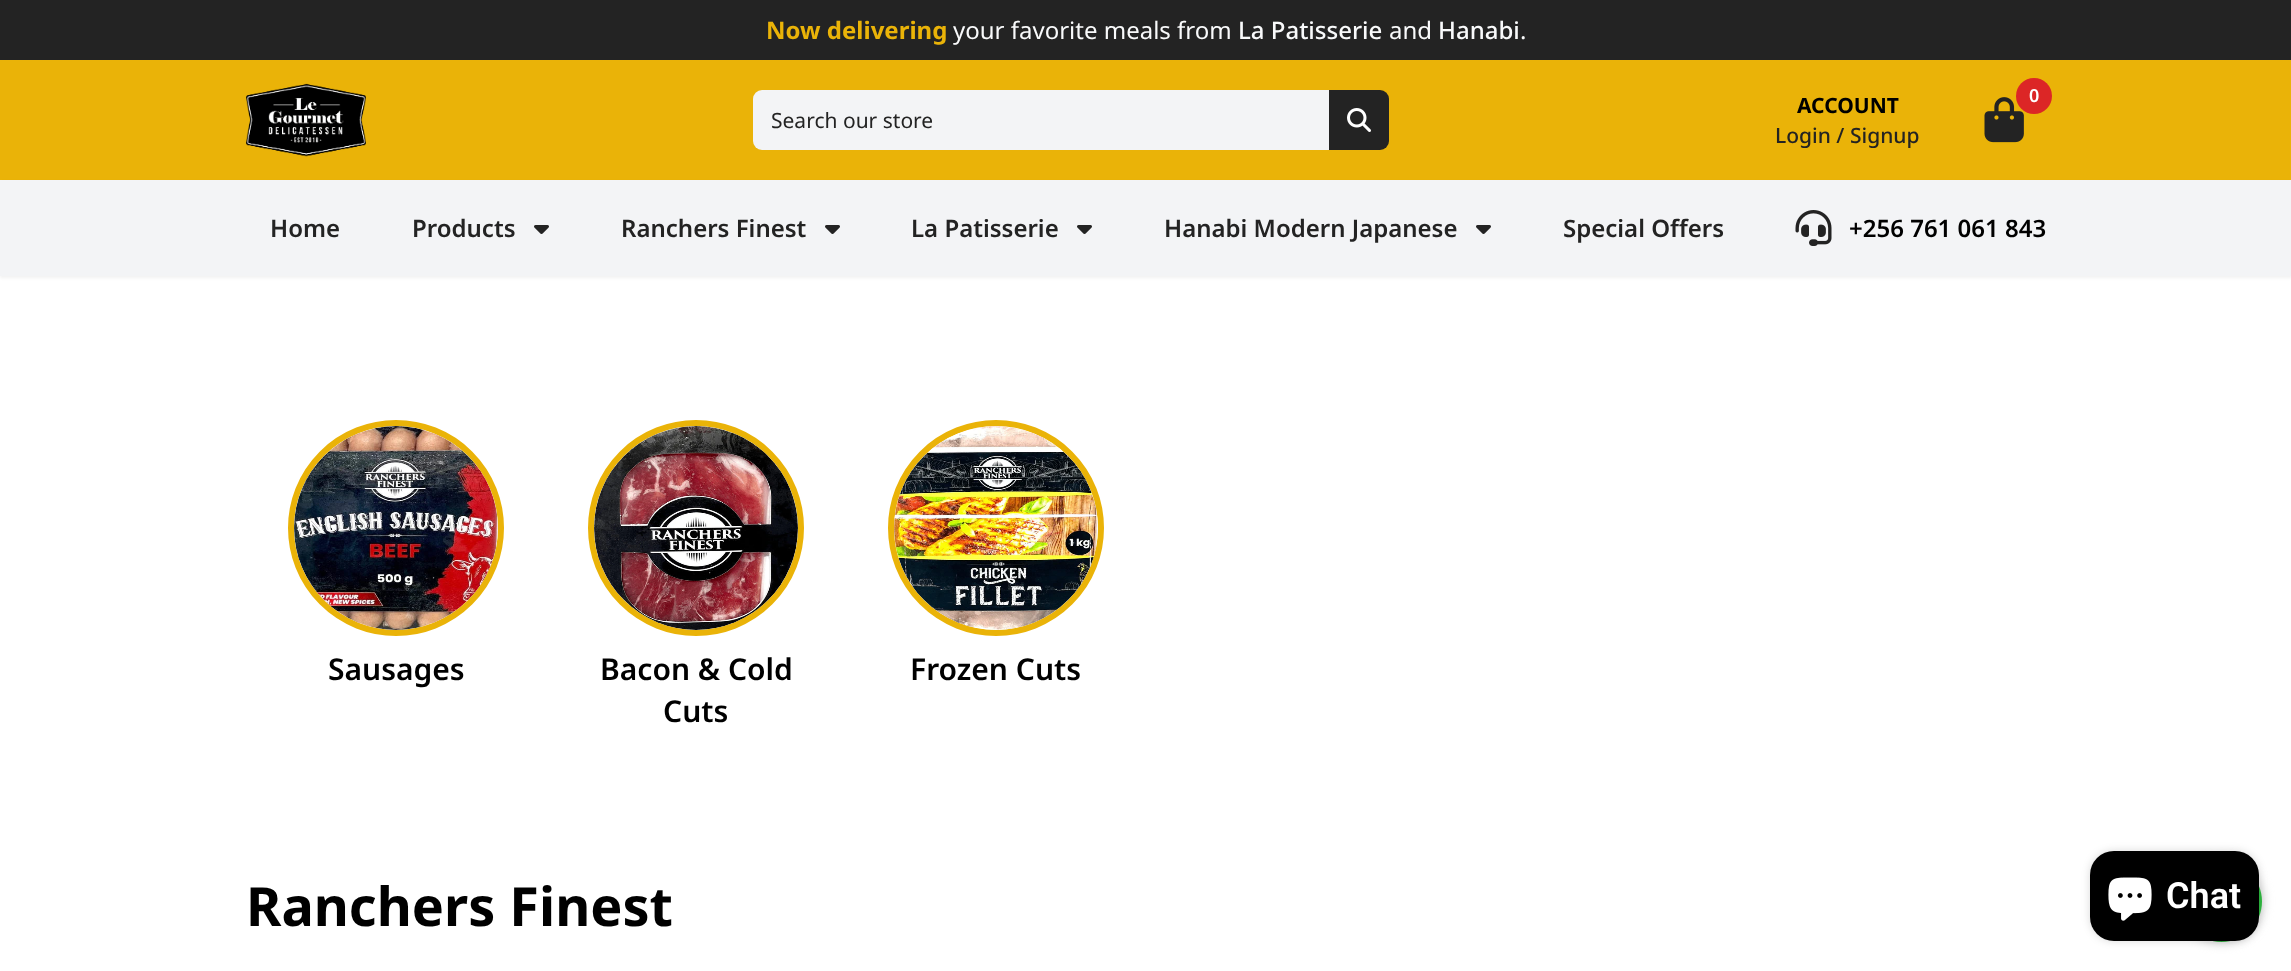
<!DOCTYPE html>
<meta charset="utf-8">
<style>body { margin: 0 } canvas { display: block }</style>
<canvas id="canvas" width="2291" height="971"></canvas>
<img id="img1" src="img_01.png" hidden>
<img id="img2" src="img_02.png" hidden>
<img id="img3" src="img_03.png" hidden>
<img id="img4" src="img_04.png" hidden>
<img id="img5" src="img_05.png" hidden>
<img id="img6" src="img_06.png" hidden>
<img id="img7" src="img_07.png" hidden>
<img id="img8" src="img_08.png" hidden>
<img id="img9" src="img_09.png" hidden>
<img id="img10" src="img_10.png" hidden>
<script>
window.onload = function () {
	const canvas = document.getElementById("canvas");
	const ctx = canvas.getContext("2d");
	ctx.miterLimit = 4;
	ctx.fontKerning = "normal";
	function txt(s, x, y) {
		ctx.fillText(s, x, y);
	}
	function fill(x, y, w, h) {
		ctx.fillRect(x, y, w, h);
	}
	function round(x, y, w, h, r) {
		ctx.beginPath();
		ctx.roundRect(x, y, w, h, r);
		ctx.fill();
	}
	function img(id, x, y, w, h) {
		ctx.drawImage(document.getElementById(id), x, y, w, h);
	}

	ctx.fillStyle = "#FFFFFF";
	fill(0, 0, 2291, 971);
	ctx.fillStyle = "#232323";
	fill(0, 0, 2291, 60);
	ctx.fillStyle = "#EAB308";
	fill(0, 60, 2291, 120);
	img("img1", 246, 83, 120, 74);
	ctx.fillStyle = "#F3F4F6";
	ctx.beginPath();
	ctx.roundRect(753, 90, 576, 60, [9, 0, 0, 9]);
	ctx.fill();
	ctx.fillStyle = "#232323";
	ctx.beginPath();
	ctx.roundRect(1329, 90, 60, 60, [0, 9, 9, 0]);
	ctx.fill();
	img("img2", 1347, 108, 24, 24);
	img("img3", 1984, 97, 40, 46);
	ctx.fillStyle = "#DC2626";
	ctx.beginPath();
	ctx.arc(2034, 96, 18, 0, Math.PI * 2);
	ctx.fill();
	ctx.fillStyle = "rgba(0, 0, 0, 0.05)";
	ctx.filter = "blur(1.5px)";
	ctx.beginPath();
	ctx.rect(0, 182, 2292, 96);
	ctx.fill();
	ctx.filter = "none";
	ctx.fillStyle = "#F3F4F6";
	fill(0, 180, 2291, 96);
	img("img4", 534, 225, 15, 9);
	img("img4", 825, 225, 15, 9);
	img("img4", 1077, 225, 15, 9);
	img("img4", 1476, 225, 15, 9);
	img("img5", 1795, 210, 37, 36);
	ctx.beginPath();
	ctx.arc(396, 528, 105, 0, Math.PI * 2);
	ctx.strokeStyle = "#EAB308";
	ctx.lineWidth = 6;
	ctx.stroke();
	img("img6", 294, 426, 204, 204);
	ctx.beginPath();
	ctx.arc(696, 528, 105, 0, Math.PI * 2);
	ctx.stroke();
	img("img7", 594, 426, 204, 204);
	ctx.beginPath();
	ctx.arc(996, 528, 105, 0, Math.PI * 2);
	ctx.stroke();
	img("img8", 894, 426, 204, 204);
	ctx.fillStyle = "#C2C2C2";
	ctx.filter = "blur(6px)";
	ctx.beginPath();
	ctx.roundRect(2181, 861, 81, 81, 40.5);
	ctx.fill();
	ctx.filter = "none";
	img("img9", 2213, 886, 49, 56);
	ctx.fillStyle = "rgba(0, 0, 0, 0.15)";
	ctx.filter = "blur(4px)";
	ctx.beginPath();
	ctx.roundRect(2090, 851, 169, 90, 24);
	ctx.fill();
	ctx.filter = "none";
	ctx.fillStyle = "#000000";
	round(2090, 851, 169, 90, 24);
	img("img10", 2108, 877, 44, 44);
	ctx.font = "bold 24px Noto Sans";
	ctx.fillStyle = "#EAB308";
	txt("Now delivering", 766, 39);
	ctx.font = "24px Noto Sans";
	ctx.fillStyle = "#F9FAFB";
	txt("your favorite meals from", 953, 39);
	ctx.font = "500 24px Noto Sans";
	txt("La Patisserie", 1238, 39);
	ctx.font = "24px Noto Sans";
	txt("and", 1389, 39);
	ctx.font = "500 24px Noto Sans";
	txt("Hanabi", 1438, 39);
	ctx.font = "24px Noto Sans";
	txt(".", 1520, 39);
	ctx.font = "21px Noto Sans";
	ctx.fillStyle = "#232323";
	txt("Search our store", 771, 128);
	ctx.font = "600 18px Noto Sans";
	ctx.fillStyle = "#FFFFFF";
	txt("0", 2029, 102);
	ctx.font = "bold 21px Noto Sans";
	ctx.fillStyle = "#000000";
	txt("ACCOUNT", 1797, 113);
	ctx.font = "500 21px Noto Sans";
	ctx.fillStyle = "#232323";
	txt("Login / Signup", 1775, 143);
	ctx.font = "600 24px Noto Sans";
	txt("Home", 270, 237);
	txt("Products", 412, 237);
	txt("Ranchers Finest", 621, 237);
	txt("La Patisserie", 911, 237);
	txt("Hanabi Modern Japanese", 1164, 237);
	txt("Special Offers", 1563, 237);
	ctx.fillStyle = "#000000";
	txt("+256 761 061 843", 1849, 237);
	ctx.font = "600 30px Noto Sans";
	txt("Sausages", 328, 680);
	txt("Bacon & Cold", 600, 680);
	txt("Cuts", 663, 722);
	txt("Frozen Cuts", 910, 680);
	ctx.font = "bold 54px Noto Sans";
	txt("Ranchers Finest", 246, 926);
	ctx.font = "600 36px Roboto";
	ctx.fillStyle = "#FFFFFF";
	txt("Chat", 2166, 908);
};
</script>
